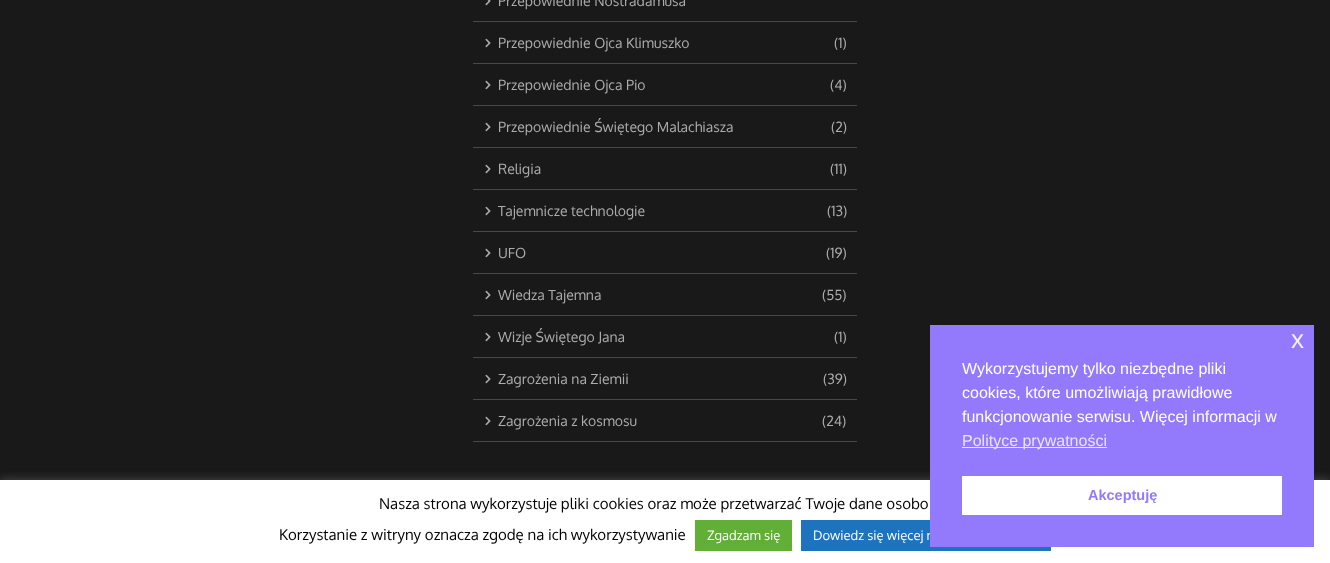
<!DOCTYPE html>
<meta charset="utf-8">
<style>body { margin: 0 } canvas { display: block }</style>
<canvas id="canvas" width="1330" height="563"></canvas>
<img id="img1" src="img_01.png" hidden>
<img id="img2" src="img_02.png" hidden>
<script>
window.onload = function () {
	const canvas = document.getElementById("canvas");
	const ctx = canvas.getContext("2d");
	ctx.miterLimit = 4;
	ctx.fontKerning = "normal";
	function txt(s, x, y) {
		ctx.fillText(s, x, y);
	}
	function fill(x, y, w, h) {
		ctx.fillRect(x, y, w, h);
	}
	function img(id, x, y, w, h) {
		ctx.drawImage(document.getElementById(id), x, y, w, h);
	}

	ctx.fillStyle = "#191919";
	fill(0, 0, 1330, 563);
	ctx.fillStyle = "#484848";
	fill(473, 21, 384, 1);
	img("img1", 485, 0, 6, 6);
	fill(473, 63, 384, 1);
	img("img2", 485, 38, 6, 10);
	fill(473, 105, 384, 1);
	img("img2", 485, 80, 6, 10);
	fill(473, 147, 384, 1);
	img("img2", 485, 122, 6, 10);
	fill(473, 189, 384, 1);
	img("img2", 485, 164, 6, 10);
	fill(473, 231, 384, 1);
	img("img2", 485, 206, 6, 10);
	fill(473, 273, 384, 1);
	img("img2", 485, 248, 6, 10);
	fill(473, 315, 384, 1);
	img("img2", 485, 290, 6, 10);
	fill(473, 357, 384, 1);
	img("img2", 485, 332, 6, 10);
	fill(473, 399, 384, 1);
	img("img2", 485, 374, 6, 10);
	fill(473, 441, 384, 1);
	img("img2", 485, 416, 6, 10);
	ctx.fillStyle = "rgba(172, 171, 171, 0.3)";
	ctx.filter = "blur(5px)";
	ctx.beginPath();
	ctx.rect(0, 479, 1330, 83);
	ctx.fill();
	ctx.filter = "none";
	ctx.fillStyle = "#FFFFFF";
	fill(0, 480, 1330, 83);
	ctx.fillStyle = "#61AF36";
	fill(695, 520, 97, 31);
	ctx.fillStyle = "#1E73BE";
	fill(801, 520, 250, 31);
	ctx.font = "14px Oxygen";
	ctx.fillStyle = "#ADADAD";
	txt("Przepowiednie Nostradamusa", 498, 6);
	txt("Przepowiednie Ojca Klimuszko", 498, 48);
	txt("(1)", 834, 48);
	txt("Przepowiednie Ojca Pio", 498, 90);
	txt("(4)", 830, 90);
	txt("Przepowiednie Świętego Malachiasza", 498, 132);
	txt("(2)", 831, 132);
	txt("Religia", 498, 174);
	txt("(11)", 830, 174);
	txt("Tajemnicze technologie", 498, 216);
	txt("(13)", 827, 216);
	txt("UFO", 498, 258);
	txt("(19)", 826, 258);
	txt("Wiedza Tajemna", 498, 300);
	txt("(55)", 822, 300);
	txt("Wizje Świętego Jana", 498, 342);
	txt("(1)", 834, 342);
	txt("Zagrożenia na Ziemii", 498, 384);
	txt("(39)", 823, 384);
	txt("Zagrożenia z kosmosu", 498, 426);
	txt("(24)", 822, 426);
	ctx.font = "15px Oxygen";
	ctx.fillStyle = "#000000";
	txt("Nasza strona wykorzystuje pliki cookies oraz może przetwarzać Twoje dane osobo", 379, 509);
	txt("Korzystanie z witryny oznacza zgodę na ich wykorzystywanie", 279, 540);
	ctx.font = "13px Oxygen";
	ctx.fillStyle = "#FFFFFF";
	txt("Zgadzam się", 707, 540);
	txt("Dowiedz się więcej n", 813, 540);
	ctx.fillStyle = "#937AFC";
	fill(930, 325, 384, 222);
	ctx.font = "26px Liberation Sans";
	ctx.fillStyle = "#F4F2FF";
	txt("x", 1291, 348);
	ctx.fillStyle = "#E9E4FE";
	fill(962, 447, 145, 1);
	ctx.font = "16px Liberation Sans";
	txt("Polityce prywatności", 962, 446);
	ctx.fillStyle = "#FFFFFF";
	fill(962, 476, 320, 39);
	ctx.font = "bold 14.5px Liberation Sans";
	ctx.fillStyle = "#937AFC";
	txt("Akceptuję", 1088, 500);
	ctx.font = "16px Liberation Sans";
	ctx.fillStyle = "#FFFFFF";
	txt("funkcjonowanie serwisu. Więcej informacji w", 962, 422);
	txt("cookies, które umożliwiają prawidłowe", 962, 398);
	txt("Wykorzystujemy tylko niezbędne pliki", 962, 374);
};
</script>
